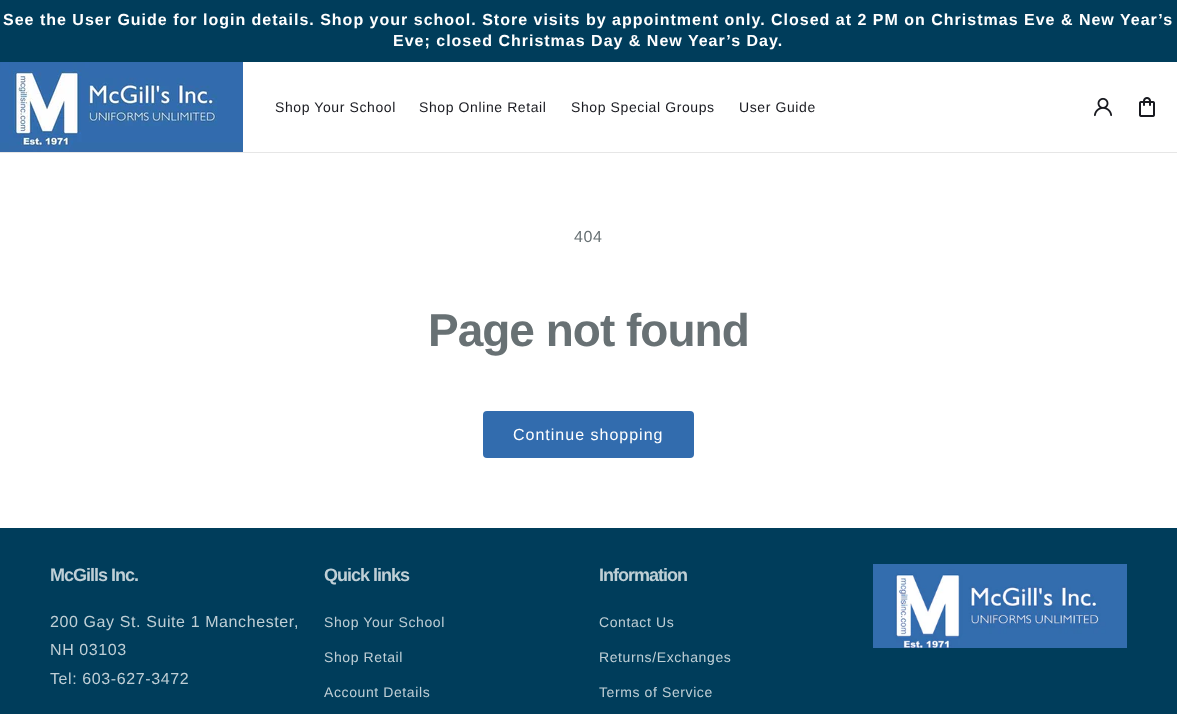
<!DOCTYPE html>
<meta charset="utf-8">
<style>body { margin: 0 } canvas { display: block }</style>
<canvas id="canvas" width="1177" height="714"></canvas>
<img id="img1" src="img_01.png" hidden>
<img id="img2" src="img_02.png" hidden>
<img id="img3" src="img_03.png" hidden>
<img id="img4" src="img_04.png" hidden>
<script>
window.onload = function () {
	const canvas = document.getElementById("canvas");
	const ctx = canvas.getContext("2d");
	ctx.miterLimit = 4;
	ctx.fontKerning = "normal";
	function txt(s, x, y) {
		ctx.fillText(s, x, y);
	}
	function fill(x, y, w, h) {
		ctx.fillRect(x, y, w, h);
	}
	function round(x, y, w, h, r) {
		ctx.beginPath();
		ctx.roundRect(x, y, w, h, r);
		ctx.fill();
	}
	function img(id, x, y, w, h) {
		ctx.drawImage(document.getElementById(id), x, y, w, h);
	}

	ctx.fillStyle = "#FFFFFF";
	fill(0, 0, 1177, 714);
	ctx.fillStyle = "#003D5B";
	fill(0, 0, 1177, 62);
	ctx.fillStyle = "#E6E6E6";
	fill(0, 152, 1177, 1);
	img("img1", 0, 62, 243, 90);
	img("img2", 1094, 97, 18, 20);
	img("img3", 1139, 97, 16, 20);
	ctx.fillStyle = "#326CAE";
	round(483, 411, 211, 47, 4);
	ctx.fillStyle = "#003D5B";
	fill(0, 528, 1177, 186);
	img("img4", 873, 564, 254, 84);
	ctx.letterSpacing = "1px";
	ctx.font = "bold 16px Liberation Sans";
	ctx.fillStyle = "#FFFFFF";
	txt("See the User Guide for login details. Shop your school. Store visits by appointment only. Closed at 2 PM on Christmas Eve & New Year’s", 3, 25);
	txt("Eve; closed Christmas Day & New Year’s Day.", 393, 46);
	ctx.letterSpacing = "0.6px";
	ctx.font = "14px Liberation Sans";
	ctx.fillStyle = "#18191F";
	txt("Shop Your School", 275, 112);
	txt("Shop Online Retail", 419, 112);
	txt("Shop Special Groups", 571, 112);
	txt("User Guide", 739, 112);
	ctx.font = "16px Liberation Sans";
	ctx.fillStyle = "#687174";
	txt("404", 574, 242);
	ctx.letterSpacing = "-1px";
	ctx.font = "bold 46px Liberation Sans";
	txt("Page not found", 428, 346);
	ctx.letterSpacing = "1px";
	ctx.font = "16px Liberation Sans";
	ctx.fillStyle = "#FFFFFF";
	txt("Continue shopping", 513, 440);
	ctx.letterSpacing = "-1px";
	ctx.font = "bold 18px Liberation Sans";
	ctx.fillStyle = "#BFCFD6";
	txt("McGills Inc.", 50, 581);
	ctx.letterSpacing = "0.6px";
	ctx.font = "16px Liberation Sans";
	txt("200 Gay St. Suite 1 Manchester,", 50, 627);
	txt("NH 03103", 50, 655);
	txt("Tel: 603-627-3472", 50, 684);
	ctx.letterSpacing = "-1px";
	ctx.font = "bold 18px Liberation Sans";
	txt("Quick links", 324, 581);
	ctx.letterSpacing = "0.6px";
	ctx.font = "14px Liberation Sans";
	txt("Shop Your School", 324, 627);
	txt("Shop Retail", 324, 662);
	txt("Account Details", 324, 697);
	ctx.letterSpacing = "-1px";
	ctx.font = "bold 18px Liberation Sans";
	txt("Information", 599, 581);
	ctx.letterSpacing = "0.6px";
	ctx.font = "14px Liberation Sans";
	txt("Contact Us", 599, 627);
	txt("Returns/Exchanges", 599, 662);
	txt("Terms of Service", 599, 697);
};
</script>
